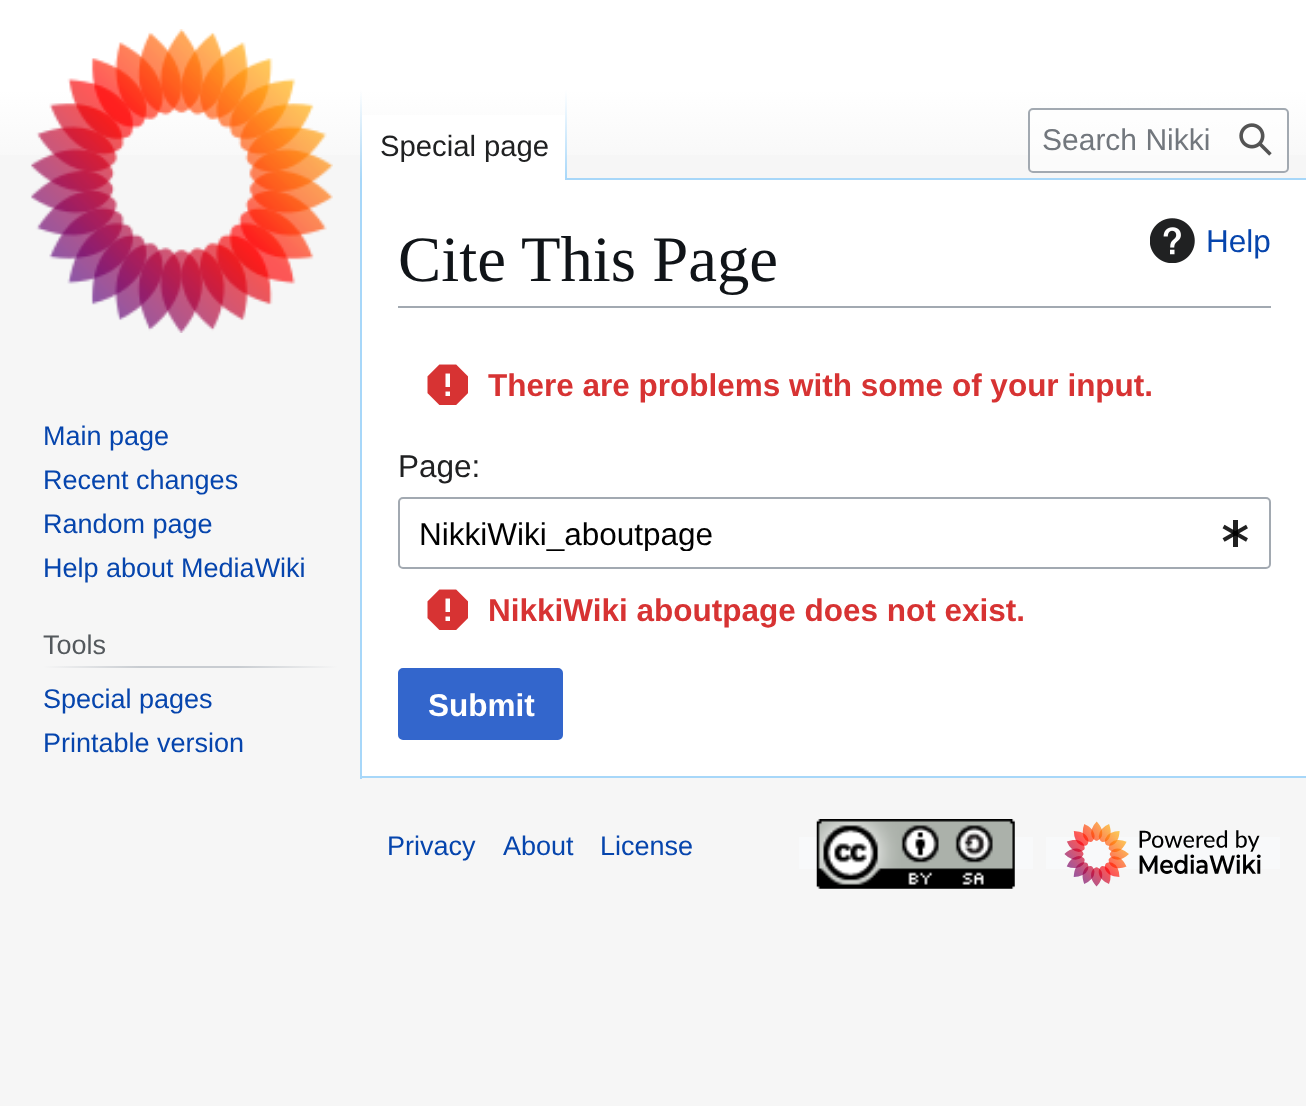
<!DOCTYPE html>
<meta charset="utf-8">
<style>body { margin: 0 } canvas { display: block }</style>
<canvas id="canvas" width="1306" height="1106"></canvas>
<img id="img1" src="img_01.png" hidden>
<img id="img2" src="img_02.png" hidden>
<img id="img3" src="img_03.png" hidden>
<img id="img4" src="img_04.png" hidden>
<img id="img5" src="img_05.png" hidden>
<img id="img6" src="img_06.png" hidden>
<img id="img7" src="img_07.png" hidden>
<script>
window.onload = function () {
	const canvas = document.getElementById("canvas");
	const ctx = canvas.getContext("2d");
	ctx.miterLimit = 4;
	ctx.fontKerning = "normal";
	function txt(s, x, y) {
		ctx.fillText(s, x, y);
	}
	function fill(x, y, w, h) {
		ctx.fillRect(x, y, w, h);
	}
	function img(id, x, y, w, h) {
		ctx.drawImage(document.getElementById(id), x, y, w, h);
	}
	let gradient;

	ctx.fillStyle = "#F6F6F6";
	fill(0, 0, 1306, 1106);
	gradient = ctx.createLinearGradient(654, 0, 654, 180);
	gradient.addColorStop(0.5, "#FFFFFF");
	gradient.addColorStop(1, "#F6F6F6");
	ctx.fillStyle = gradient;
	fill(0, 0, 1306, 155);
	ctx.fillStyle = "#A7D7F9";
	fill(360, 776, 946, 2);
	fill(360, 178, 2, 601);
	gradient = ctx.createLinearGradient(361, 90, 361, 180);
	gradient.addColorStop(0, "rgba(167, 215, 249, 0)");
	gradient.addColorStop(1, "#A7D7F9");
	ctx.fillStyle = gradient;
	fill(360, 90, 2, 90);
	ctx.fillStyle = "#FFFFFF";
	fill(362, 115, 203, 65);
	gradient = ctx.createLinearGradient(566, 90, 566, 180);
	gradient.addColorStop(0, "#FFFFFF");
	gradient.addColorStop(1, "#A7D7F9");
	ctx.fillStyle = gradient;
	fill(565, 90, 2, 90);
	ctx.fillStyle = "rgba(255, 255, 255, 0.5)";
	ctx.beginPath();
	ctx.roundRect(1029, 109, 259, 63, 4);
	ctx.fill();
	ctx.strokeStyle = "#A2A9B1";
	ctx.lineWidth = 2;
	ctx.stroke();
	img("img1", 1239, 123, 33, 33);
	img("img2", 30, 29, 303, 304);
	gradient = ctx.createLinearGradient(43, 667, 338, 667);
	gradient.addColorStop(0, "#F6F6F6");
	gradient.addColorStop(0.33, "#C8CCD1");
	gradient.addColorStop(0.66, "#C8CCD1");
	gradient.addColorStop(1, "#F6F6F6");
	ctx.fillStyle = gradient;
	fill(43, 666, 295, 2);
	ctx.fillStyle = "#FFFFFF";
	fill(362, 180, 944, 596);
	ctx.fillStyle = "#A7D7F9";
	fill(567, 178, 739, 2);
	ctx.fillStyle = "#A2A9B1";
	fill(398, 306, 873, 2);
	img("img3", 1150, 218, 45, 45);
	img("img4", 427, 364, 41, 41);
	ctx.beginPath();
	ctx.roundRect(399, 498, 871, 70, 4);
	ctx.stroke();
	img("img5", 1222, 520, 26, 27);
	img("img4", 427, 589, 41, 41);
	ctx.fillStyle = "#3366CC";
	ctx.beginPath();
	ctx.roundRect(399, 669, 163, 70, 4);
	ctx.fill();
	ctx.strokeStyle = "#3366CC";
	ctx.stroke();
	ctx.fillStyle = "#F8F9FA";
	fill(799, 837, 234, 32);
	img("img6", 816, 819, 199, 70);
	fill(1046, 837, 234, 32);
	img("img7", 1064, 821, 197, 66);
	ctx.font = "29.25px Liberation Sans";
	ctx.fillStyle = "#202122";
	txt("Special page", 380, 156);
	ctx.font = "30px Liberation Sans";
	ctx.fillStyle = "#72777D";
	txt("Search Nikki", 1042, 150);
	ctx.font = "27px Liberation Sans";
	ctx.fillStyle = "#0645AD";
	txt("Main page", 43, 445);
	txt("Recent changes", 43, 489);
	txt("Random page", 43, 533);
	txt("Help about MediaWiki", 43, 577);
	ctx.fillStyle = "#54595D";
	txt("Tools", 43, 654);
	ctx.fillStyle = "#0645AD";
	txt("Special pages", 43, 708);
	txt("Printable version", 43, 752);
	ctx.font = "64.75px Liberation Serif";
	ctx.fillStyle = "#101418";
	txt("Cite This Page", 398, 281);
	ctx.font = "31.5px Liberation Sans";
	ctx.fillStyle = "#0645AD";
	txt("Help", 1206, 252);
	ctx.font = "bold 31.5px Liberation Sans";
	ctx.fillStyle = "#D73333";
	txt("There are problems with some of your input.", 488, 396);
	ctx.font = "31.5px Liberation Sans";
	ctx.fillStyle = "#202122";
	txt("Page:", 398, 477);
	ctx.save();
	ctx.beginPath();
	ctx.rect(419, 515, 787, 36);
	ctx.clip();
	ctx.fillStyle = "#000000";
	txt("NikkiWiki_aboutpage", 419, 545);
	ctx.restore();
	ctx.font = "bold 31.5px Liberation Sans";
	ctx.fillStyle = "#D73333";
	txt("NikkiWiki aboutpage does not exist.", 488, 621);
	ctx.fillStyle = "#FFFFFF";
	txt("Submit", 428, 716);
	ctx.font = "27px Liberation Sans";
	ctx.fillStyle = "#0645AD";
	txt("Privacy", 387, 855);
	txt("About", 503, 855);
	txt("License", 600, 855);
};
</script>
